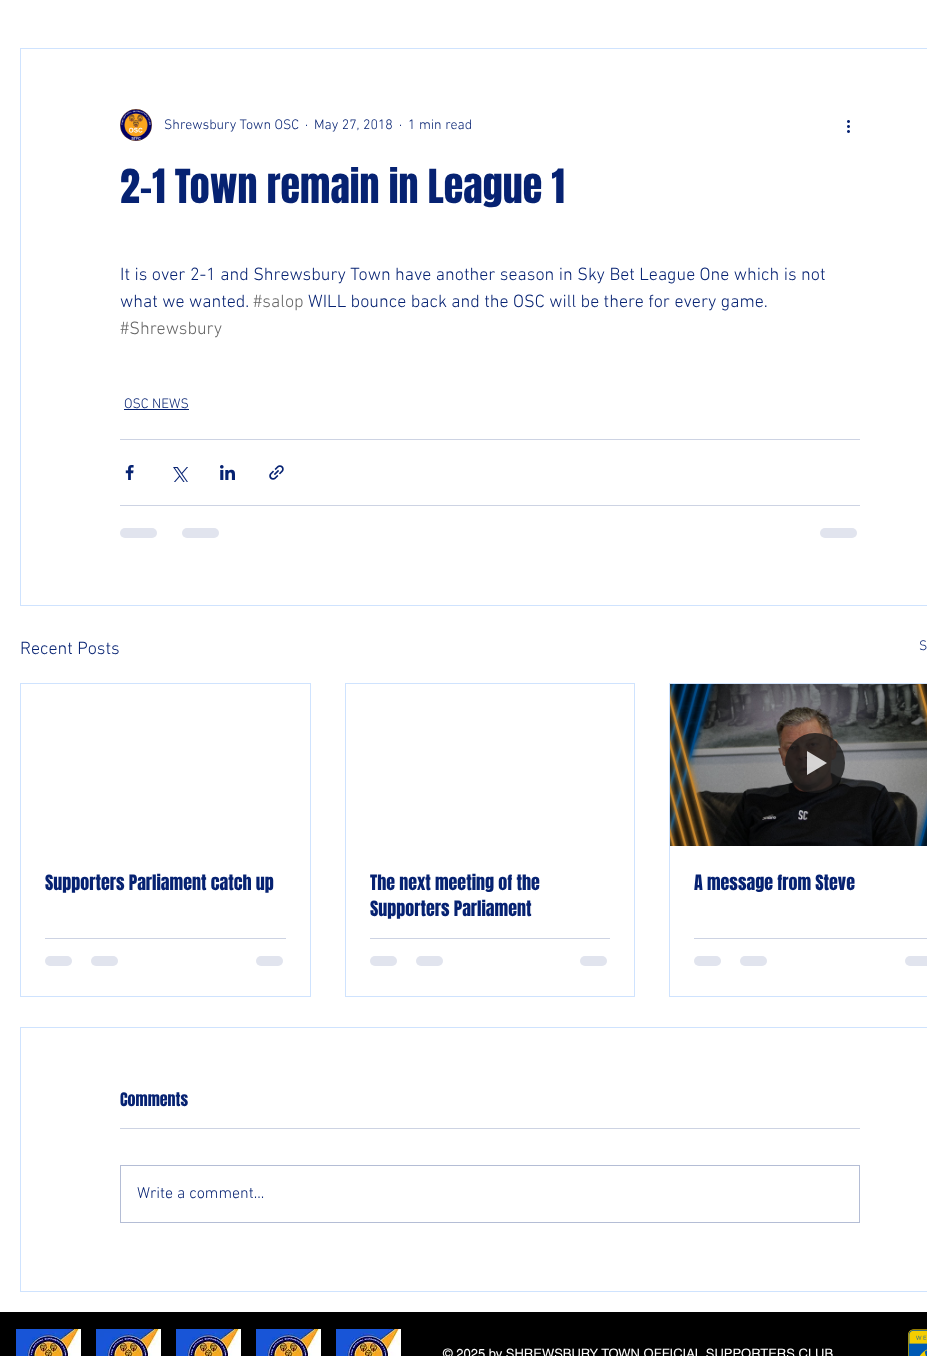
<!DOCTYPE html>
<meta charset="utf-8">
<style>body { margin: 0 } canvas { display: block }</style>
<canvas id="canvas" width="927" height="1356"></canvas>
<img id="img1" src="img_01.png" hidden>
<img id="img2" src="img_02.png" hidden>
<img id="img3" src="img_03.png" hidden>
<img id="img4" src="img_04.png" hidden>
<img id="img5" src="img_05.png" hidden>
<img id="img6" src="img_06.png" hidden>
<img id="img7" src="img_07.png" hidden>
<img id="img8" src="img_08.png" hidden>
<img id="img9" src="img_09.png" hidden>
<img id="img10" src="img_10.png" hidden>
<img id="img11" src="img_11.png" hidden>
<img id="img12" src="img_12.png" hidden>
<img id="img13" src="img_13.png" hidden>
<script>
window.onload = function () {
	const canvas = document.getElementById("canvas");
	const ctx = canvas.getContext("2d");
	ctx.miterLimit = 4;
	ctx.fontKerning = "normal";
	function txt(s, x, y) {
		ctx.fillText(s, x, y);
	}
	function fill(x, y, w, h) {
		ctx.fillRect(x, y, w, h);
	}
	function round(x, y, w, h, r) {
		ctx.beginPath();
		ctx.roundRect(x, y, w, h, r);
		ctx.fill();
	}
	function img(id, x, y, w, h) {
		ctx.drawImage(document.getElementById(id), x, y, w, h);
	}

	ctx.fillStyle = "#FFFFFF";
	fill(0, 0, 927, 1356);
	ctx.strokeStyle = "#CFE3FE";
	ctx.strokeRect(20.5, 48.5, 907, 557);
	img("img1", 120, 109, 32, 32);
	img("img2", 847, 120, 3, 13);
	ctx.fillStyle = "#062272";
	fill(124, 409, 65, 1);
	ctx.fillStyle = "#CDD3E3";
	fill(120, 439, 740, 1);
	img("img3", 125, 465, 9, 15);
	img("img4", 173, 467, 15, 15);
	img("img5", 220, 465, 15, 15);
	img("img6", 269, 465, 15, 15);
	fill(120, 505, 740, 1);
	ctx.fillStyle = "#E1E4EE";
	round(120, 528, 37, 10, 5);
	round(182, 528, 37, 10, 5);
	round(820, 528, 37, 10, 5);
	ctx.strokeRect(20.5, 683.5, 290, 313);
	ctx.fillStyle = "#CDD3E3";
	fill(45, 938, 241, 1);
	ctx.fillStyle = "#E1E4EE";
	round(45, 956, 27, 10, 5);
	round(91, 956, 27, 10, 5);
	round(256, 956, 27, 10, 5);
	ctx.strokeRect(345.5, 683.5, 289, 313);
	ctx.fillStyle = "#CDD3E3";
	fill(370, 938, 240, 1);
	ctx.fillStyle = "#E1E4EE";
	round(370, 956, 27, 10, 5);
	round(416, 956, 27, 10, 5);
	round(580, 956, 27, 10, 5);
	ctx.strokeRect(669.5, 683.5, 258, 313);
	img("img7", 670, 684, 257, 162);
	ctx.fillStyle = "rgba(26, 26, 26, 0.8)";
	ctx.beginPath();
	ctx.arc(815, 763, 30, 0, Math.PI * 2);
	ctx.fill();
	ctx.fillStyle = "rgba(255, 255, 255, 0.8)";
	ctx.beginPath();
	ctx.moveTo(807, 751);
	ctx.lineTo(807, 775);
	ctx.lineTo(827, 763);
	ctx.closePath();
	ctx.fill();
	ctx.fillStyle = "#CDD3E3";
	fill(694, 938, 233, 1);
	ctx.fillStyle = "#E1E4EE";
	round(694, 956, 27, 10, 5);
	round(740, 956, 27, 10, 5);
	round(905, 956, 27, 10, 5);
	ctx.strokeRect(20.5, 1027.5, 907, 264);
	ctx.fillStyle = "#CDD3E3";
	fill(120, 1128, 740, 1);
	ctx.strokeStyle = "#B4BDD5";
	ctx.strokeRect(120.5, 1165.5, 739, 57);
	ctx.fillStyle = "#000000";
	fill(0, 1312, 927, 44);
	img("img8", 16, 1329, 65, 27);
	img("img9", 96, 1329, 65, 27);
	img("img10", 176, 1329, 65, 27);
	img("img11", 256, 1329, 65, 27);
	img("img12", 336, 1329, 65, 27);
	img("img13", 908, 1329, 19, 27);
	ctx.font = "300 14px 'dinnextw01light'";
	ctx.fillStyle = "#062272";
	txt("Shrewsbury Town OSC", 164, 129);
	txt("·", 305, 129);
	txt("May 27, 2018", 314, 129);
	txt("·", 399, 129);
	txt("1 min read", 408, 129);
	ctx.font = "40px Anton";
	txt("2-1 Town remain in League 1", 120, 203);
	ctx.font = "300 18px 'dinnextw01light'";
	txt("It is over 2-1 and Shrewsbury Town have another season in Sky Bet League One which is not", 120, 280);
	txt("what we wanted.", 120, 307);
	ctx.fillStyle = "#666666";
	txt("#salop", 253, 307);
	ctx.fillStyle = "#062272";
	txt("WILL bounce back and the OSC will be there for every game.", 308, 307);
	ctx.fillStyle = "#666666";
	txt("#Shrewsbury", 120, 334);
	ctx.font = "300 14px 'dinnextw01light'";
	ctx.fillStyle = "#062272";
	txt("OSC NEWS", 124, 408);
	ctx.font = "300 18px 'dinnextw01light'";
	txt("Recent Posts", 20, 654);
	ctx.font = "300 14px 'dinnextw01light'";
	txt("S", 919, 650);
	ctx.font = "18px Anton";
	txt("Supporters Parliament catch up", 45, 890);
	ctx.save();
	ctx.beginPath();
	ctx.rect(370, 870, 240, 52);
	ctx.clip();
	txt("The next meeting of the", 370, 890);
	ctx.restore();
	txt("Supporters Parliament", 370, 916);
	txt("A message from Steve", 694, 890);
	ctx.font = "16px Anton";
	txt("Comments", 120, 1106);
	ctx.font = "300 16px 'dinnextw01light'";
	txt("Write a comment...", 137, 1198);
	ctx.font = "13px helvetica";
	ctx.fillStyle = "#FFFFFF";
	txt("© 2025 by SHREWSBURY TOWN OFFICIAL SUPPORTERS CLUB.", 443, 1358);
};
</script>
